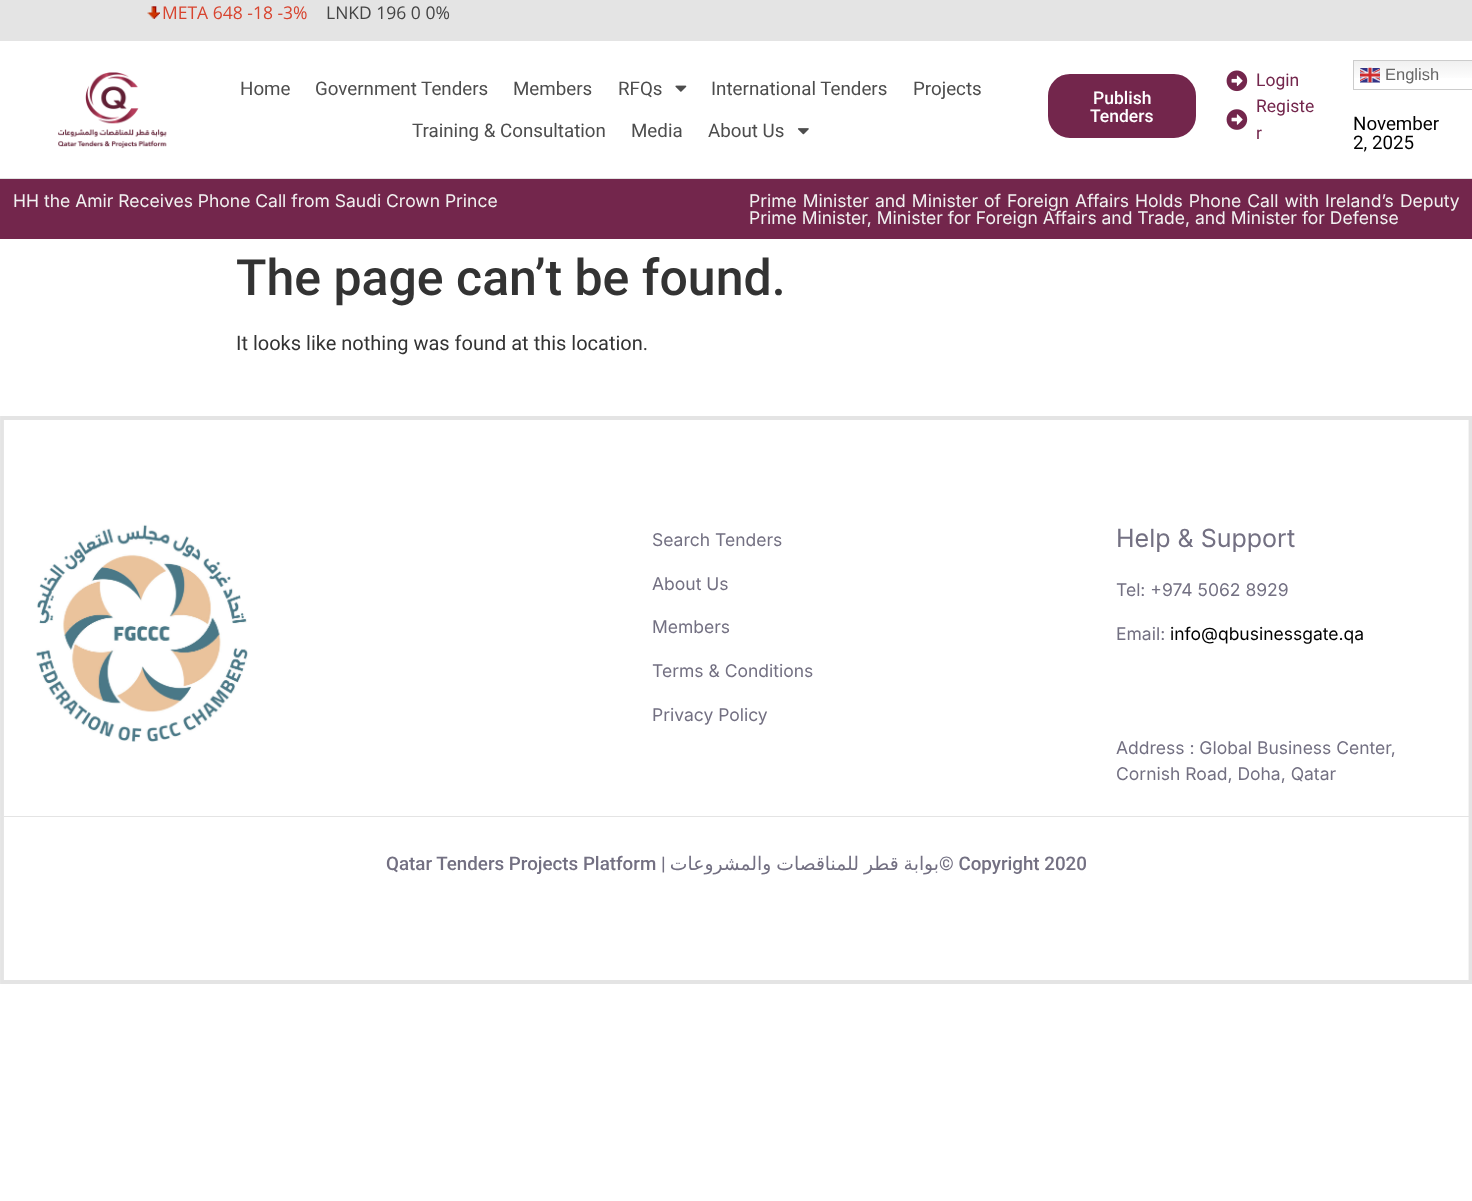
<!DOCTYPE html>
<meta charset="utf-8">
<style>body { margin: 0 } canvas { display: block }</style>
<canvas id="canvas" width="1472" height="1201"></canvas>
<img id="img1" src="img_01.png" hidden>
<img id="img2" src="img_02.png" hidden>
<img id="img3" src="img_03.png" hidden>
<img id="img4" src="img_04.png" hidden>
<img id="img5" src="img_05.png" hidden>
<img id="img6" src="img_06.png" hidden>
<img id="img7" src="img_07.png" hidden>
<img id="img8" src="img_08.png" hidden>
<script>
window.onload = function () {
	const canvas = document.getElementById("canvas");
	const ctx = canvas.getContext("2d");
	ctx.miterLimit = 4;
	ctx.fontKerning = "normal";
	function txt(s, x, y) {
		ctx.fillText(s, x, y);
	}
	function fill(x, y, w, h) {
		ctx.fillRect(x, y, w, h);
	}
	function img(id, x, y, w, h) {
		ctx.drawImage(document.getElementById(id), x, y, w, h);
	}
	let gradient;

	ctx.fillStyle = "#FFFFFF";
	fill(0, 0, 1472, 1201);
	ctx.fillStyle = "#E4E4E4";
	fill(0, 0, 1472, 41);
	img("img1", 147, 6, 13, 13);
	ctx.fillStyle = "#E2E2E2";
	fill(0, 178, 1472, 1);
	img("img2", 58, 72, 109, 76);
	img("img3", 675, 85, 12, 7);
	img("img4", 797, 128, 12, 7);
	ctx.fillStyle = "#73264C";
	ctx.beginPath();
	ctx.roundRect(1046.5, 72.5, 151, 67, 23.5);
	ctx.fill();
	ctx.strokeStyle = "#FFFFFF";
	ctx.lineWidth = 3;
	ctx.stroke();
	img("img5", 1226, 70, 22, 22);
	img("img6", 1226, 109, 22, 21);
	gradient = ctx.createLinearGradient(1454, 60, 1454, 90);
	gradient.addColorStop(0, "#EFEFEF");
	gradient.addColorStop(0.7, "#FFFFFF");
	ctx.fillStyle = gradient;
	fill(1354, 61, 118, 17);
	ctx.strokeStyle = "#CCCCCC";
	ctx.lineWidth = 1;
	ctx.strokeRect(1353.5, 60.5, 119, 29);
	img("img7", 1360, 67, 20, 16);
	ctx.fillStyle = "#73264C";
	fill(0, 179, 1472, 60);
	ctx.beginPath();
	ctx.moveTo(2, 418);
	ctx.lineTo(1470.5, 418);
	ctx.lineTo(1470.5, 982);
	ctx.lineTo(2, 982);
	ctx.closePath();
	ctx.strokeStyle = "#E4E4E4";
	ctx.lineWidth = 3.8;
	ctx.stroke();
	ctx.fillStyle = "#E4E4E4";
	fill(4, 816, 1465, 1);
	img("img8", 36, 524, 212, 218);
	ctx.font = "17.5px Open Sans";
	ctx.fillStyle = "#D8442F";
	txt("META 648 -18 -3%", 162, 19);
	ctx.fillStyle = "#454545";
	txt("LNKD 196 0 0%", 326, 19);
	ctx.font = "18.75px Roboto";
	ctx.fillStyle = "#4D4D4D";
	txt("Home", 240, 95);
	txt("Government Tenders", 315, 95);
	txt("Members", 513, 95);
	txt("RFQs", 618, 95);
	txt("International Tenders", 711, 95);
	txt("Projects", 913, 95);
	txt("Training & Consultation", 412, 137);
	txt("Media", 631, 137);
	txt("About Us", 708, 137);
	ctx.font = "500 17.5px Roboto";
	ctx.fillStyle = "#FFFFFF";
	txt("Publish", 1093, 104);
	txt("Tenders", 1090, 122);
	ctx.font = "17.5px Roboto";
	ctx.fillStyle = "#73264C";
	txt("Login", 1256, 86);
	txt("Registe", 1256, 112);
	txt("r", 1256, 139);
	ctx.font = "16.5px Liberation Sans";
	ctx.fillStyle = "#666666";
	txt("English", 1385, 80);
	ctx.font = "18.75px Roboto";
	ctx.fillStyle = "#000000";
	txt("November", 1353, 130);
	txt("2, 2025", 1353, 149);
	ctx.font = "17.5px Inter";
	ctx.fillStyle = "#F1F1F1";
	txt("HH the Amir Receives Phone Call from Saudi Crown Prince", 13, 207);
	ctx.wordSpacing = "1.1px";
	txt("Prime Minister and Minister of Foreign Affairs Holds Phone Call with Ireland’s Deputy", 749, 207);
	ctx.wordSpacing = "0px";
	txt("Prime Minister, Minister for Foreign Affairs and Trade, and Minister for Defense", 749, 224);
	ctx.font = "500 50px Roboto";
	ctx.fillStyle = "#333333";
	txt("The page can’t be found.", 236, 295);
	ctx.font = "20px Roboto";
	txt("It looks like nothing was found at this location.", 236, 350);
	ctx.font = "17.5px Inter";
	ctx.fillStyle = "#737082";
	txt("Search Tenders", 652, 546);
	txt("About Us", 652, 590);
	txt("Members", 652, 633);
	txt("Terms & Conditions", 652, 677);
	txt("Privacy Policy", 652, 721);
	ctx.font = "25px Inter";
	txt("Help & Support", 1116, 547);
	ctx.font = "17.5px Inter";
	txt("Tel: +974 5062 8929", 1116, 596);
	txt("Email:", 1116, 640);
	ctx.fillStyle = "#000000";
	txt("info@qbusinessgate.qa", 1170, 640);
	ctx.fillStyle = "#737082";
	txt("Address : Global Business Center,", 1116, 754);
	txt("Cornish Road, Doha, Qatar", 1116, 780);
	ctx.font = "500 18.75px Roboto";
	txt("Qatar Tenders Projects Platform |", 386, 870);
	ctx.wordSpacing = "-1px";
	ctx.direction = "rtl";
	ctx.font = "18.75px DejaVu Sans";
	txt("بوابة قطر للمناقصات والمشروعات", 939, 870);
	ctx.wordSpacing = "0px";
	ctx.direction = "ltr";
	ctx.font = "500 18.75px Roboto";
	txt("© Copyright 2020", 939, 870);
};
</script>
